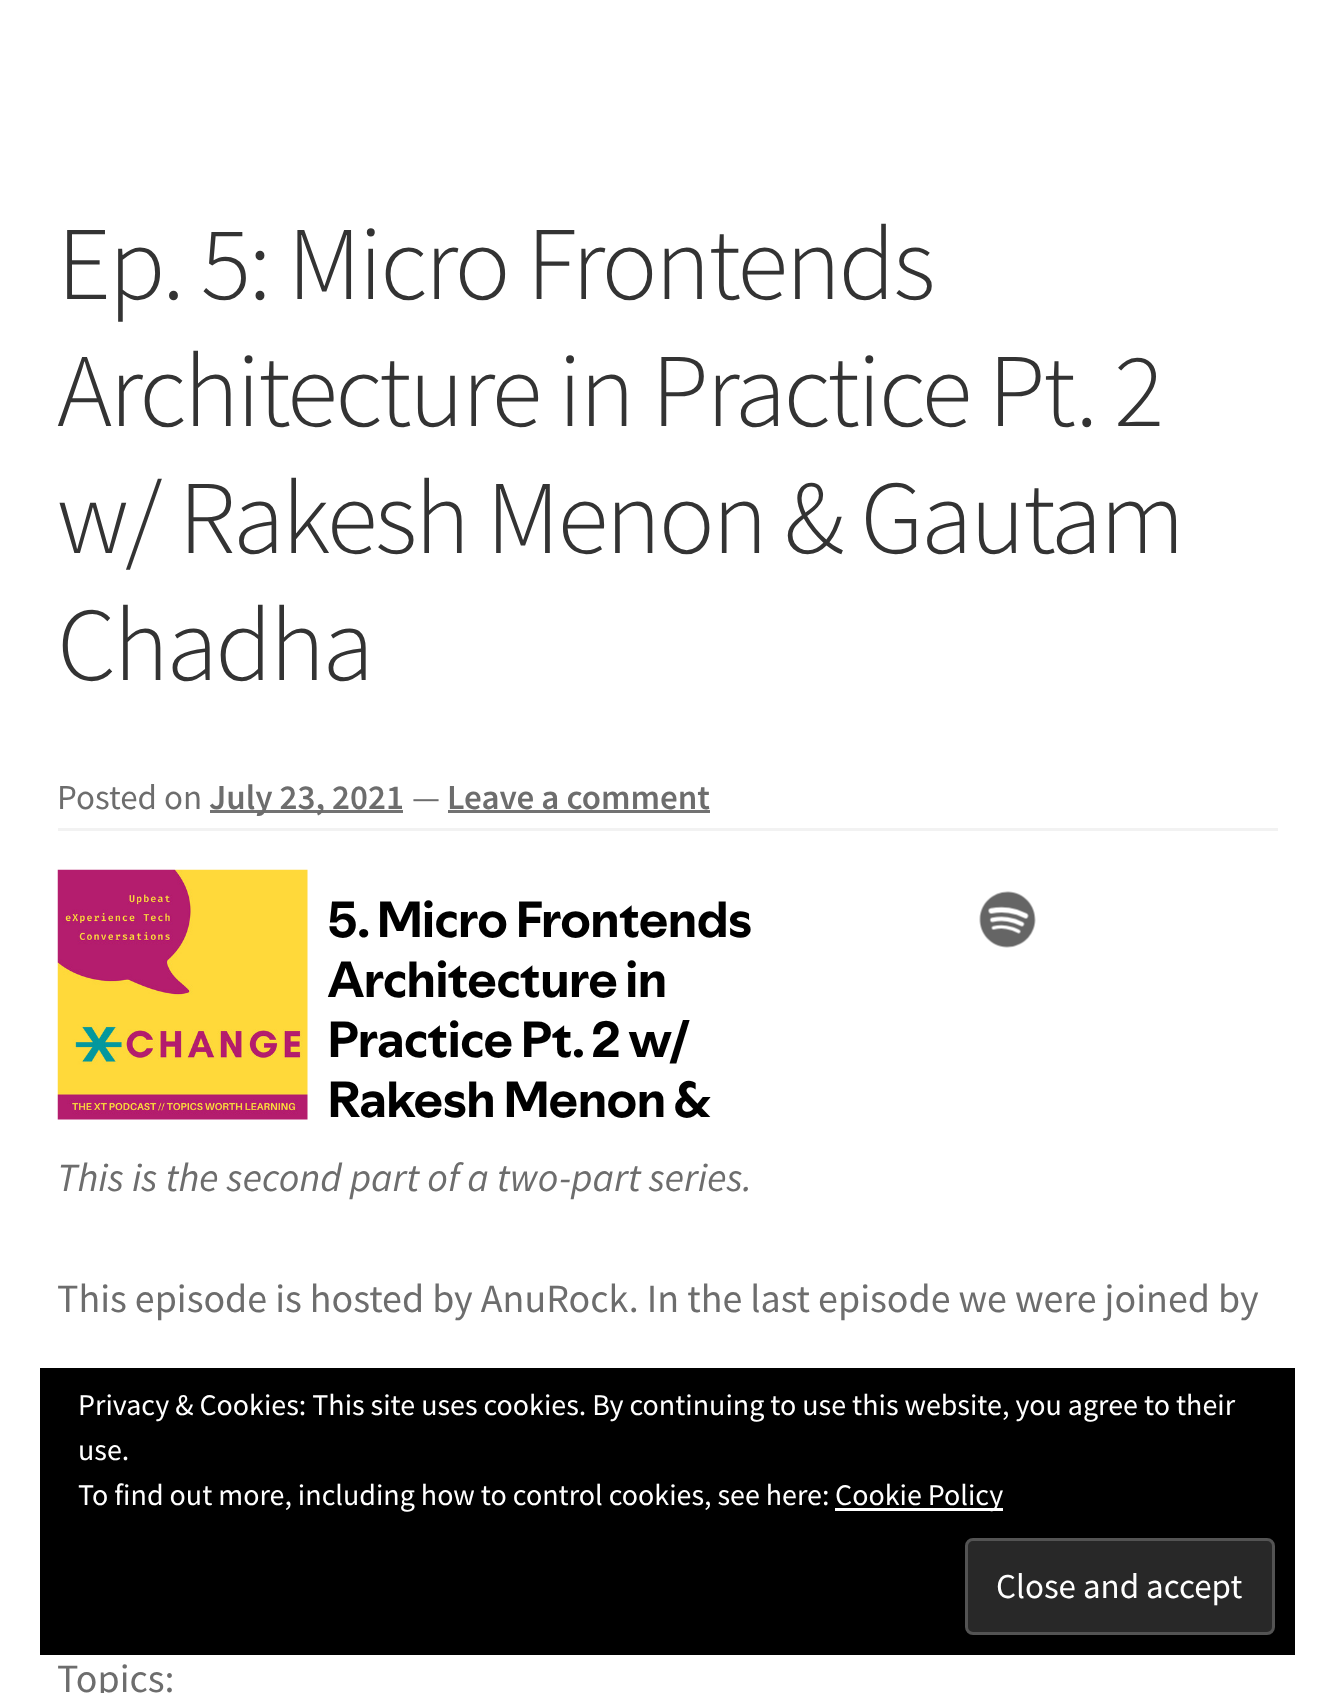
<!DOCTYPE html>
<meta charset="utf-8">
<style>body { margin: 0 } canvas { display: block }</style>
<canvas id="canvas" width="1335" height="1693"></canvas>
<img id="img1" src="img_01.png" hidden>
<script>
window.onload = function () {
	const canvas = document.getElementById("canvas");
	const ctx = canvas.getContext("2d");
	ctx.miterLimit = 4;
	ctx.fontKerning = "normal";
	function txt(s, x, y) {
		ctx.fillText(s, x, y);
	}
	function fill(x, y, w, h) {
		ctx.fillRect(x, y, w, h);
	}
	function img(id, x, y, w, h) {
		ctx.drawImage(document.getElementById(id), x, y, w, h);
	}

	ctx.fillStyle = "#FFFFFF";
	fill(0, 0, 1335, 1693);
	ctx.fillStyle = "#F2F2F2";
	fill(58, 828, 1220, 3);
	ctx.fillStyle = "#727272";
	fill(210, 810, 193, 3);
	fill(448, 810, 262, 3);
	img("img1", 57, 869, 979, 251);
	ctx.fillStyle = "#000000";
	fill(40, 1368, 1255, 287);
	ctx.fillStyle = "#FFFFFF";
	fill(835, 1508, 168, 3);
	ctx.fillStyle = "#282828";
	ctx.beginPath();
	ctx.roundRect(966.5, 1539.5, 307, 94, 6.5);
	ctx.fill();
	ctx.strokeStyle = "#535353";
	ctx.lineWidth = 3;
	ctx.stroke();
	ctx.letterSpacing = "-2.5px";
	ctx.font = "300 104.75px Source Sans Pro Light";
	ctx.fillStyle = "#333333";
	txt("Ep. 5: Micro Frontends", 57, 299);
	txt("Architecture in Practice Pt. 2", 57, 426);
	txt("w/ Rakesh Menon & Gautam", 57, 553);
	txt("Chadha", 57, 680);
	ctx.letterSpacing = "0px";
	ctx.font = "35px Source Sans Pro";
	ctx.fillStyle = "#6D6D6D";
	txt("Posted on", 57, 809);
	ctx.font = "600 35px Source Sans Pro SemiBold";
	txt("July 23, 2021", 209, 809);
	ctx.font = "35px Source Sans Pro";
	txt("—", 412, 809);
	ctx.font = "600 35px Source Sans Pro SemiBold";
	txt("Leave a comment", 447, 809);
	ctx.font = "italic 40px Source Sans Pro";
	txt("This is the second part of a two-part series.", 57, 1191);
	ctx.font = "40px Source Sans Pro";
	txt("This episode is hosted by AnuRock. In the last episode we were joined by", 57, 1312);
	txt("Topics:", 57, 1692);
	ctx.font = "30px Source Sans Pro";
	ctx.fillStyle = "#FFFFFF";
	txt("Privacy & Cookies: This site uses cookies. By continuing to use this website, you agree to their", 78, 1415);
	txt("use.", 78, 1460);
	txt("To find out more, including how to control cookies, see here:", 78, 1505);
	txt("Cookie Policy", 835, 1505);
	ctx.font = "35px Source Sans Pro";
	txt("Close and accept", 996, 1598);
};
</script>
